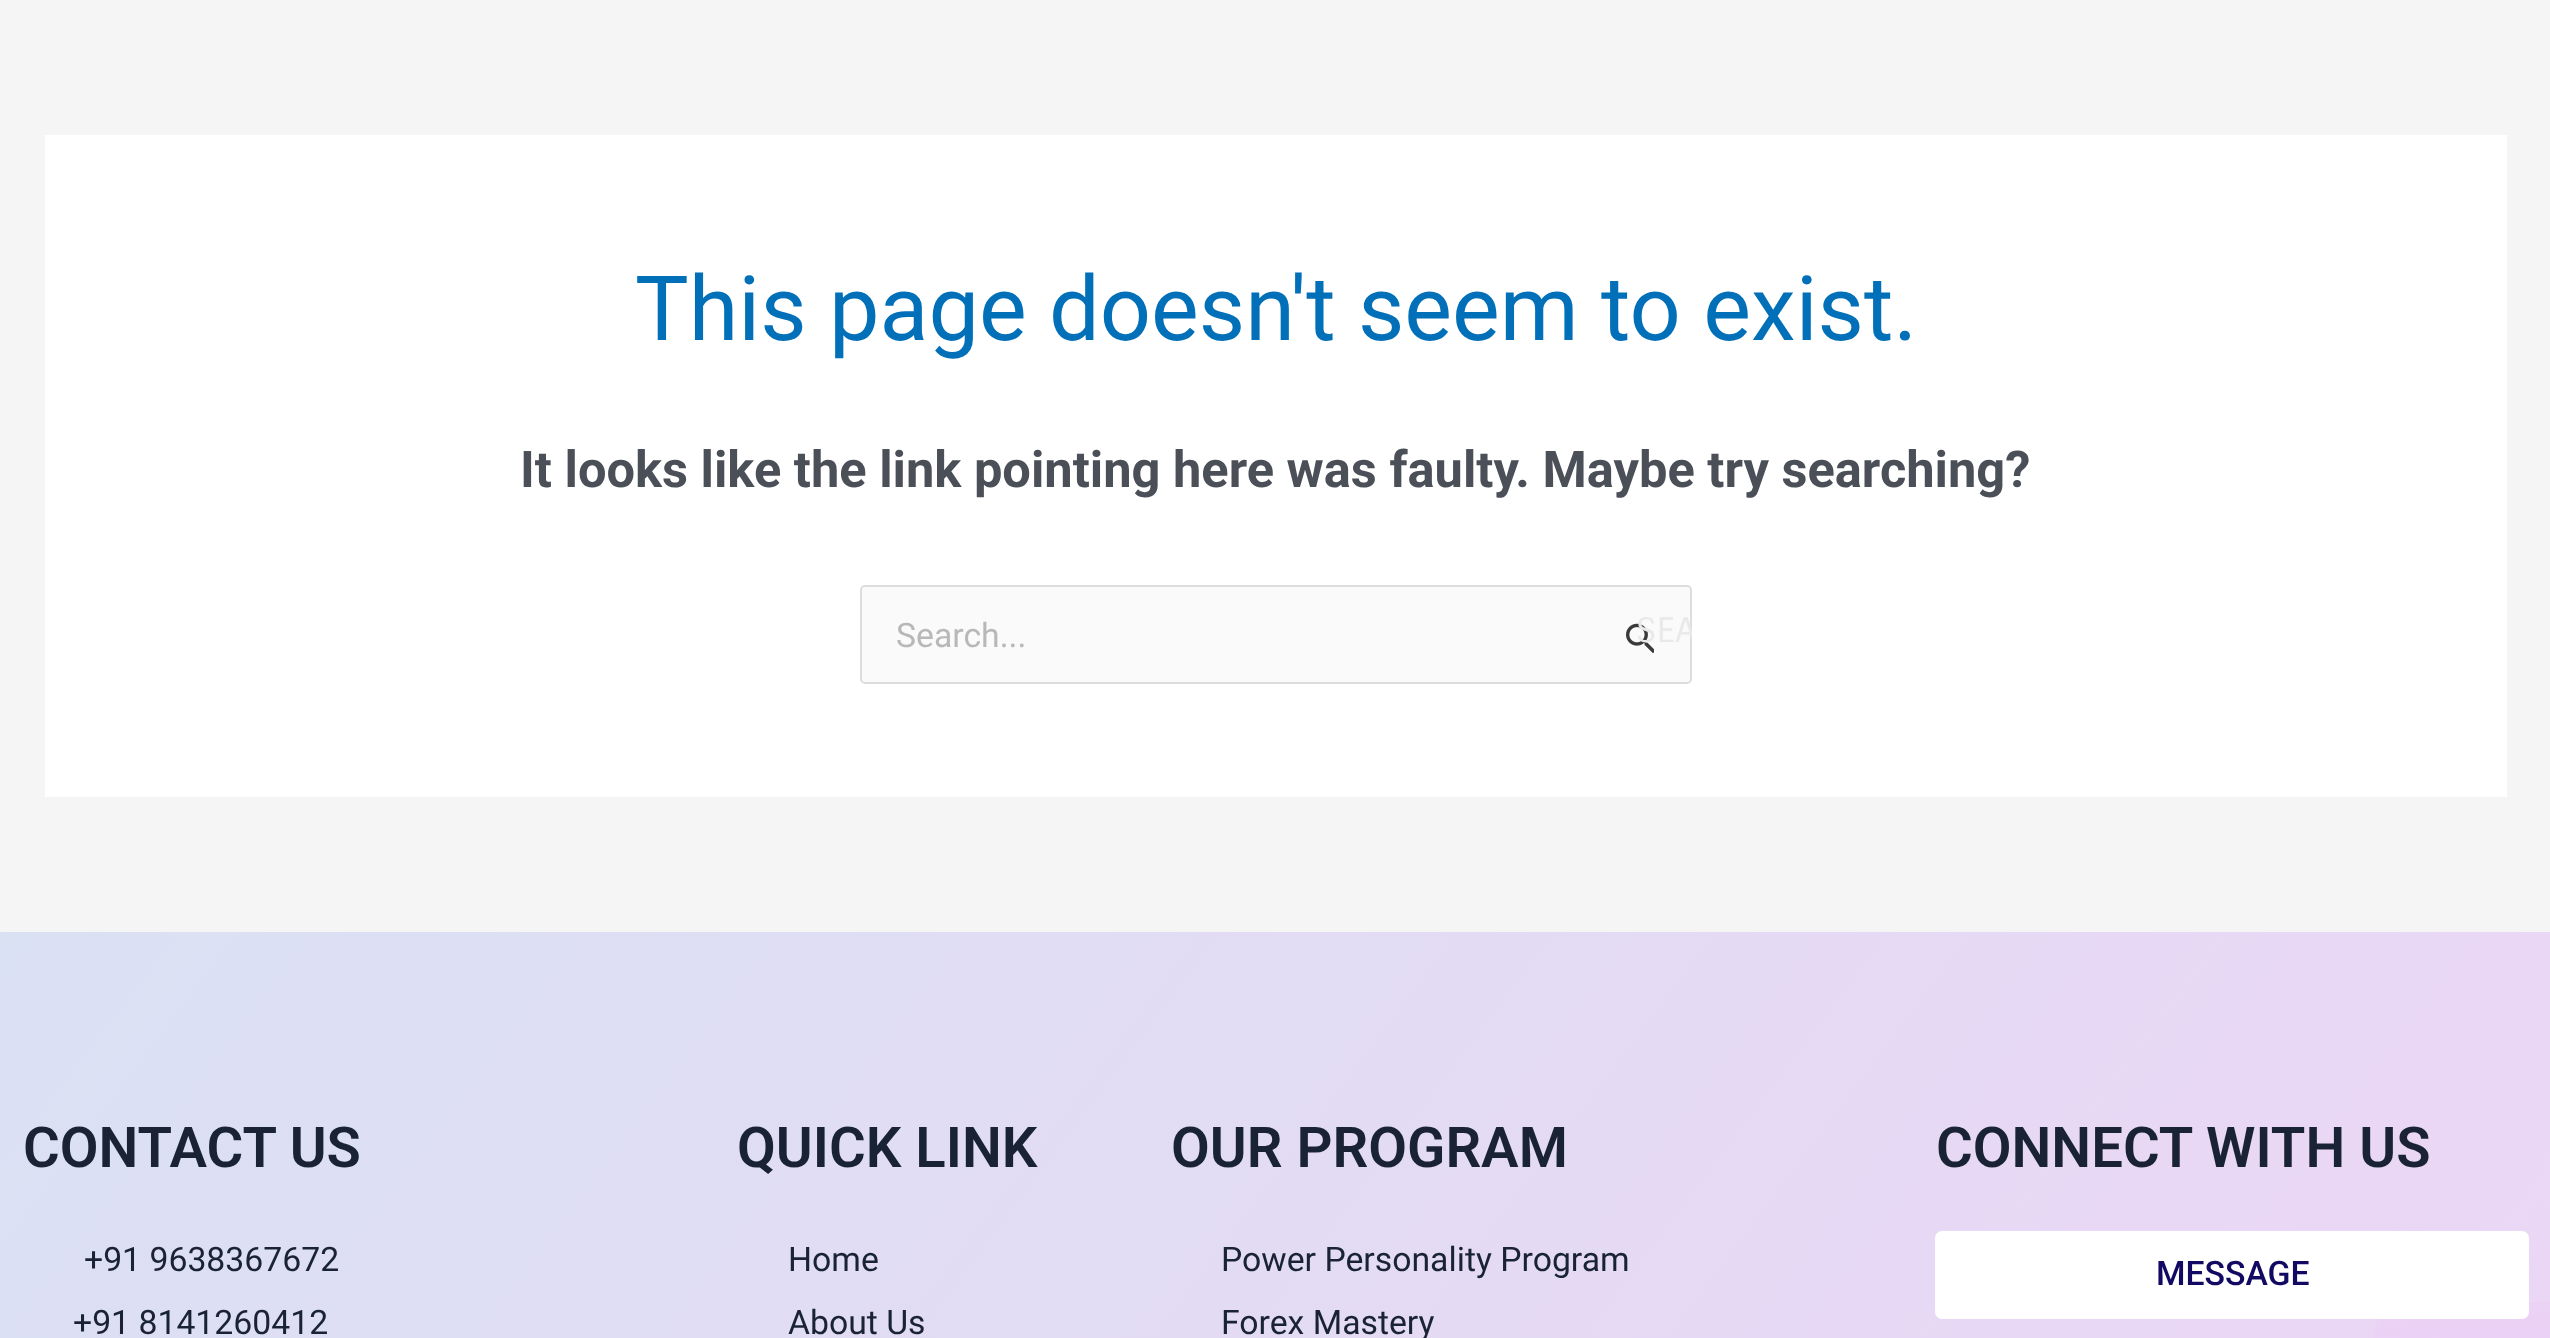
<!DOCTYPE html>
<meta charset="utf-8">
<style>body { margin: 0 } canvas { display: block }</style>
<canvas id="canvas" width="2550" height="1338"></canvas>
<img id="img1" src="img_01.png" hidden>
<img id="img2" src="img_02.png" hidden>
<script>
window.onload = function () {
	const canvas = document.getElementById("canvas");
	const ctx = canvas.getContext("2d");
	ctx.miterLimit = 4;
	ctx.fontKerning = "normal";
	function txt(s, x, y) {
		ctx.fillText(s, x, y);
	}
	function fill(x, y, w, h) {
		ctx.fillRect(x, y, w, h);
	}
	function round(x, y, w, h, r) {
		ctx.beginPath();
		ctx.roundRect(x, y, w, h, r);
		ctx.fill();
	}
	function img(id, x, y, w, h) {
		ctx.drawImage(document.getElementById(id), x, y, w, h);
	}
	let gradient;

	ctx.fillStyle = "#F5F5F5";
	fill(0, 0, 2550, 1338);
	ctx.fillStyle = "#FFFFFF";
	fill(45, 135, 2462, 662);
	ctx.fillStyle = "#FAFAFA";
	ctx.beginPath();
	ctx.roundRect(861, 586, 830, 97, 4);
	ctx.fill();
	ctx.strokeStyle = "#DDDDDD";
	ctx.lineWidth = 2;
	ctx.stroke();
	img("img1", 1626, 623, 28, 31);
	gradient = ctx.createLinearGradient(211, 651, 2340, 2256);
	gradient.addColorStop(0, "#DAE1F3");
	gradient.addColorStop(1, "#EED4F6");
	ctx.fillStyle = gradient;
	fill(0, 932, 2550, 406);
	img("img2", 2374, 1302, 176, 36);
	ctx.fillStyle = "#FFFFFF";
	round(1935, 1231, 594, 88, 7);
	ctx.font = "90px Roboto";
	ctx.fillStyle = "#0170B9";
	txt("This page doesn't seem to exist.", 635, 340);
	ctx.font = "bold 50.6px Roboto";
	ctx.fillStyle = "#4B4F58";
	txt("It looks like the link pointing here was faulty. Maybe try searching?", 520, 487);
	ctx.font = "33.75px Roboto";
	ctx.fillStyle = "#B8B8B8";
	txt("Search...", 896, 647);
	ctx.save();
	ctx.beginPath();
	ctx.roundRect(1591, 585, 101, 92, 5);
	ctx.clip();
	ctx.font = "33.75px Sintony";
	ctx.fillStyle = "#E9E9E9";
	txt("SEA", 1636, 642);
	ctx.restore();
	ctx.font = "600 56.25px Roboto";
	ctx.fillStyle = "#192335";
	txt("CONTACT US", 23, 1167);
	ctx.font = "33.75px Roboto";
	txt("+91 9638367672", 84, 1271);
	txt("+91 8141260412", 73, 1334);
	ctx.font = "600 56.25px Roboto";
	txt("QUICK LINK", 737, 1167);
	ctx.font = "33.75px Roboto";
	txt("Home", 788, 1271);
	txt("About Us", 788, 1334);
	ctx.font = "600 56.25px Roboto";
	txt("OUR PROGRAM", 1171, 1167);
	ctx.font = "33.75px Roboto";
	txt("Power Personality Program", 1221, 1271);
	txt("Forex Mastery", 1221, 1334);
	ctx.font = "600 56.25px Roboto";
	txt("CONNECT WITH US", 1936, 1167);
	ctx.font = "500 33.75px Roboto";
	ctx.fillStyle = "#120963";
	txt("MESSAGE", 2156, 1285);
};
</script>
